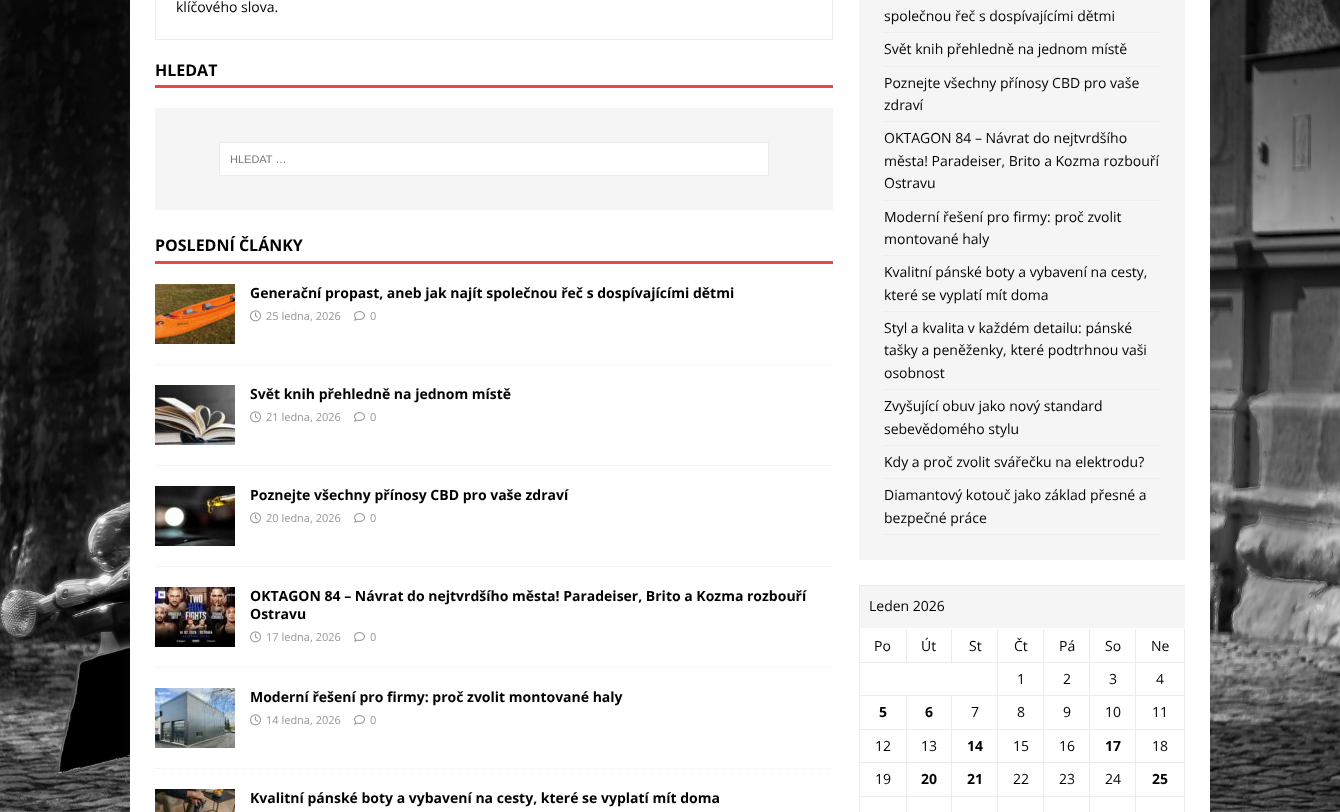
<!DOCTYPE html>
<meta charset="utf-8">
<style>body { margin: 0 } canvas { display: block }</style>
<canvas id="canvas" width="1340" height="812"></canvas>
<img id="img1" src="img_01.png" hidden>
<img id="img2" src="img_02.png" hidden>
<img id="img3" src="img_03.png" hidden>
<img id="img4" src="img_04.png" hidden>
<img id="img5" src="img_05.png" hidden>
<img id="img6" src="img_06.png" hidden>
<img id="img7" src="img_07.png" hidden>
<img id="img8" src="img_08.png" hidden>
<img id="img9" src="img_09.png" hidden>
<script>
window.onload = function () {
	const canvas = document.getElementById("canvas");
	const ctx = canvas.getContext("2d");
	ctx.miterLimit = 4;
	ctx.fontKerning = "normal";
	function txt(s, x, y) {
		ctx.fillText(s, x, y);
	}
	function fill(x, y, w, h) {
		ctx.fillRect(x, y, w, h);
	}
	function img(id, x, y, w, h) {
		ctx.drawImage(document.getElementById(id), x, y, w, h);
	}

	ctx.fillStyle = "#FFFFFF";
	fill(0, 0, 1340, 812);
	img("img1", 0, 0, 1340, 812);
	ctx.fillStyle = "rgba(50, 50, 50, 0.17)";
	ctx.filter = "blur(5px)";
	ctx.beginPath();
	ctx.rect(130, -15, 1080, 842);
	ctx.fill();
	ctx.filter = "none";
	ctx.fillStyle = "#FFFFFF";
	fill(130, 0, 1080, 812);
	ctx.strokeStyle = "#EBEBEB";
	ctx.strokeRect(155.5, -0.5, 677, 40);
	ctx.fillStyle = "#E64946";
	fill(155, 85, 678, 3);
	ctx.fillStyle = "#F5F5F5";
	fill(155, 108, 678, 102);
	ctx.fillStyle = "#FFFFFF";
	ctx.beginPath();
	ctx.rect(219.5, 142.5, 549, 33);
	ctx.fill();
	ctx.stroke();
	ctx.fillStyle = "#E64946";
	fill(155, 261, 678, 3);
	ctx.beginPath();
	ctx.moveTo(155, 364.5);
	ctx.lineTo(833, 364.5);
	ctx.setLineDash([1, 1]);
	ctx.stroke();
	img("img2", 155, 284, 80, 60);
	img("img3", 250, 310, 11, 12);
	img("img4", 354, 311, 11, 10);
	ctx.beginPath();
	ctx.moveTo(155, 465.5);
	ctx.lineTo(833, 465.5);
	ctx.stroke();
	img("img5", 155, 385, 80, 60);
	img("img3", 250, 411, 11, 12);
	img("img4", 354, 412, 11, 10);
	ctx.beginPath();
	ctx.moveTo(155, 566.5);
	ctx.lineTo(833, 566.5);
	ctx.stroke();
	img("img6", 155, 486, 80, 60);
	img("img3", 250, 512, 11, 12);
	img("img4", 354, 513, 11, 10);
	ctx.beginPath();
	ctx.moveTo(155, 667.5);
	ctx.lineTo(833, 667.5);
	ctx.stroke();
	img("img7", 155, 587, 80, 60);
	img("img3", 250, 631, 11, 12);
	img("img4", 354, 632, 11, 10);
	ctx.beginPath();
	ctx.moveTo(155, 768.5);
	ctx.lineTo(833, 768.5);
	ctx.stroke();
	img("img8", 155, 688, 80, 60);
	img("img3", 250, 714, 11, 12);
	img("img4", 354, 715, 11, 10);
	img("img9", 155, 789, 80, 23);
	ctx.fillStyle = "#F5F5F5";
	fill(859, 0, 326, 560);
	ctx.beginPath();
	ctx.moveTo(884, 32.5);
	ctx.lineTo(1160, 32.5);
	ctx.strokeStyle = "#E5E5E5";
	ctx.stroke();
	ctx.beginPath();
	ctx.moveTo(884, 66.5);
	ctx.lineTo(1160, 66.5);
	ctx.stroke();
	ctx.beginPath();
	ctx.moveTo(884, 121.5);
	ctx.lineTo(1160, 121.5);
	ctx.stroke();
	ctx.beginPath();
	ctx.moveTo(884, 200.5);
	ctx.lineTo(1160, 200.5);
	ctx.stroke();
	ctx.beginPath();
	ctx.moveTo(884, 255.5);
	ctx.lineTo(1160, 255.5);
	ctx.stroke();
	ctx.beginPath();
	ctx.moveTo(884, 311.5);
	ctx.lineTo(1160, 311.5);
	ctx.stroke();
	ctx.beginPath();
	ctx.moveTo(884, 389.5);
	ctx.lineTo(1160, 389.5);
	ctx.stroke();
	ctx.beginPath();
	ctx.moveTo(884, 445.5);
	ctx.lineTo(1160, 445.5);
	ctx.stroke();
	ctx.beginPath();
	ctx.moveTo(884, 478.5);
	ctx.lineTo(1160, 478.5);
	ctx.stroke();
	ctx.beginPath();
	ctx.moveTo(884, 534.5);
	ctx.lineTo(1160, 534.5);
	ctx.stroke();
	ctx.fillStyle = "#EBEBEB";
	fill(859, 585, 326, 1);
	fill(859, 585, 1, 227);
	ctx.fillStyle = "#F5F5F5";
	fill(860, 586, 325, 42);
	ctx.fillStyle = "#EBEBEB";
	fill(1184, 629, 1, 183);
	fill(1135, 796, 1, 16);
	fill(1135, 796, 50, 1);
	fill(1135, 762, 1, 35);
	fill(1135, 762, 50, 1);
	fill(1135, 729, 1, 34);
	fill(1135, 729, 50, 1);
	fill(1135, 695, 1, 35);
	fill(1135, 695, 50, 1);
	fill(1135, 662, 1, 34);
	fill(1135, 662, 50, 1);
	fill(1135, 629, 1, 34);
	fill(1089, 796, 1, 16);
	fill(1089, 796, 47, 1);
	fill(1089, 762, 1, 35);
	fill(1089, 762, 47, 1);
	fill(1089, 729, 1, 34);
	fill(1089, 729, 47, 1);
	fill(1089, 695, 1, 35);
	fill(1089, 695, 47, 1);
	fill(1089, 662, 1, 34);
	fill(1089, 662, 47, 1);
	fill(1089, 629, 1, 34);
	fill(1043, 796, 1, 16);
	fill(1043, 796, 47, 1);
	fill(1043, 762, 1, 35);
	fill(1043, 762, 47, 1);
	fill(1043, 729, 1, 34);
	fill(1043, 729, 47, 1);
	fill(1043, 695, 1, 35);
	fill(1043, 695, 47, 1);
	fill(1043, 662, 1, 34);
	fill(1043, 662, 47, 1);
	fill(1043, 629, 1, 34);
	fill(997, 796, 1, 16);
	fill(997, 796, 47, 1);
	fill(997, 762, 1, 35);
	fill(997, 762, 47, 1);
	fill(997, 729, 1, 34);
	fill(997, 729, 47, 1);
	fill(997, 695, 1, 35);
	fill(997, 695, 47, 1);
	fill(997, 662, 1, 34);
	fill(997, 662, 47, 1);
	fill(997, 629, 1, 34);
	fill(951, 662, 47, 1);
	fill(951, 629, 1, 34);
	fill(906, 662, 46, 1);
	fill(906, 629, 1, 34);
	fill(859, 662, 48, 1);
	fill(906, 796, 1, 16);
	fill(951, 796, 1, 16);
	fill(951, 796, 47, 1);
	fill(951, 762, 1, 35);
	fill(951, 762, 47, 1);
	fill(951, 729, 1, 34);
	fill(951, 729, 47, 1);
	fill(951, 695, 1, 35);
	fill(906, 796, 46, 1);
	fill(906, 762, 1, 35);
	fill(906, 762, 46, 1);
	fill(906, 729, 1, 34);
	fill(906, 729, 46, 1);
	fill(906, 695, 1, 35);
	fill(859, 695, 139, 1);
	fill(859, 729, 48, 1);
	fill(859, 762, 48, 1);
	fill(859, 796, 48, 1);
	ctx.font = "14px Open Sans";
	ctx.fillStyle = "#000000";
	txt("klíčového slova.", 176, 12);
	ctx.font = "bold 16px Open Sans";
	txt("HLEDAT", 155, 76);
	ctx.font = "11px Liberation Sans";
	ctx.fillStyle = "#757575";
	txt("HLEDAT …", 230, 163);
	ctx.font = "bold 16px Open Sans";
	ctx.fillStyle = "#000000";
	txt("POSLEDNÍ ČLÁNKY", 155, 251);
	ctx.font = "bold 14px Open Sans";
	txt("Generační propast, aneb jak najít společnou řeč s dospívajícími dětmi", 250, 298);
	ctx.font = "11px Open Sans";
	ctx.fillStyle = "#979797";
	txt("25 ledna, 2026", 266, 320);
	txt("0", 370, 320);
	ctx.font = "bold 14px Open Sans";
	ctx.fillStyle = "#000000";
	txt("Svět knih přehledně na jednom místě", 250, 399);
	ctx.font = "11px Open Sans";
	ctx.fillStyle = "#979797";
	txt("21 ledna, 2026", 266, 421);
	txt("0", 370, 421);
	ctx.font = "bold 14px Open Sans";
	ctx.fillStyle = "#000000";
	txt("Poznejte všechny přínosy CBD pro vaše zdraví", 250, 500);
	ctx.font = "11px Open Sans";
	ctx.fillStyle = "#979797";
	txt("20 ledna, 2026", 266, 522);
	txt("0", 370, 522);
	ctx.font = "bold 14px Open Sans";
	ctx.fillStyle = "#000000";
	txt("OKTAGON 84 – Návrat do nejtvrdšího města! Paradeiser, Brito a Kozma rozbouří", 250, 601);
	txt("Ostravu", 250, 619);
	ctx.font = "11px Open Sans";
	ctx.fillStyle = "#979797";
	txt("17 ledna, 2026", 266, 641);
	txt("0", 370, 641);
	ctx.font = "bold 14px Open Sans";
	ctx.fillStyle = "#000000";
	txt("Moderní řešení pro firmy: proč zvolit montované haly", 250, 702);
	ctx.font = "11px Open Sans";
	ctx.fillStyle = "#979797";
	txt("14 ledna, 2026", 266, 724);
	txt("0", 370, 724);
	ctx.font = "bold 14px Open Sans";
	ctx.fillStyle = "#000000";
	txt("Kvalitní pánské boty a vybavení na cesty, které se vyplatí mít doma", 250, 803);
	ctx.font = "14px Open Sans";
	txt("společnou řeč s dospívajícími dětmi", 884, 21);
	txt("Svět knih přehledně na jednom místě", 884, 54);
	txt("Poznejte všechny přínosy CBD pro vaše", 884, 88);
	txt("zdraví", 884, 110);
	txt("OKTAGON 84 – Návrat do nejtvrdšího", 884, 143);
	txt("města! Paradeiser, Brito a Kozma rozbouří", 884, 166);
	txt("Ostravu", 884, 188);
	txt("Moderní řešení pro firmy: proč zvolit", 884, 222);
	txt("montované haly", 884, 244);
	txt("Kvalitní pánské boty a vybavení na cesty,", 884, 277);
	txt("které se vyplatí mít doma", 884, 300);
	txt("Styl a kvalita v každém detailu: pánské", 884, 333);
	txt("tašky a peněženky, které podtrhnou vaši", 884, 355);
	txt("osobnost", 884, 378);
	txt("Zvyšující obuv jako nový standard", 884, 411);
	txt("sebevědomého stylu", 884, 434);
	txt("Kdy a proč zvolit svářečku na elektrodu?", 884, 467);
	txt("Diamantový kotouč jako základ přesné a", 884, 500);
	txt("bezpečné práce", 884, 523);
	txt("Leden 2026", 869, 611);
	txt("Po", 874, 651);
	txt("Út", 921, 651);
	txt("St", 969, 651);
	txt("Čt", 1014, 651);
	txt("Pá", 1059, 651);
	txt("So", 1105, 651);
	txt("Ne", 1151, 651);
	txt("1", 1017, 684);
	txt("2", 1063, 684);
	txt("3", 1109, 684);
	txt("4", 1156, 684);
	ctx.font = "bold 14px Open Sans";
	txt("5", 879, 717);
	txt("6", 925, 717);
	ctx.font = "14px Open Sans";
	txt("7", 971, 717);
	txt("8", 1017, 717);
	txt("9", 1063, 717);
	txt("10", 1105, 717);
	txt("11", 1152, 717);
	txt("12", 875, 751);
	txt("13", 921, 751);
	ctx.font = "bold 14px Open Sans";
	txt("14", 967, 751);
	ctx.font = "14px Open Sans";
	txt("15", 1013, 751);
	txt("16", 1059, 751);
	ctx.font = "bold 14px Open Sans";
	txt("17", 1105, 751);
	ctx.font = "14px Open Sans";
	txt("18", 1152, 751);
	txt("19", 875, 784);
	ctx.font = "bold 14px Open Sans";
	txt("20", 921, 784);
	txt("21", 967, 784);
	ctx.font = "14px Open Sans";
	txt("22", 1013, 784);
	txt("23", 1059, 784);
	txt("24", 1105, 784);
	ctx.font = "bold 14px Open Sans";
	txt("25", 1152, 784);
};
</script>
